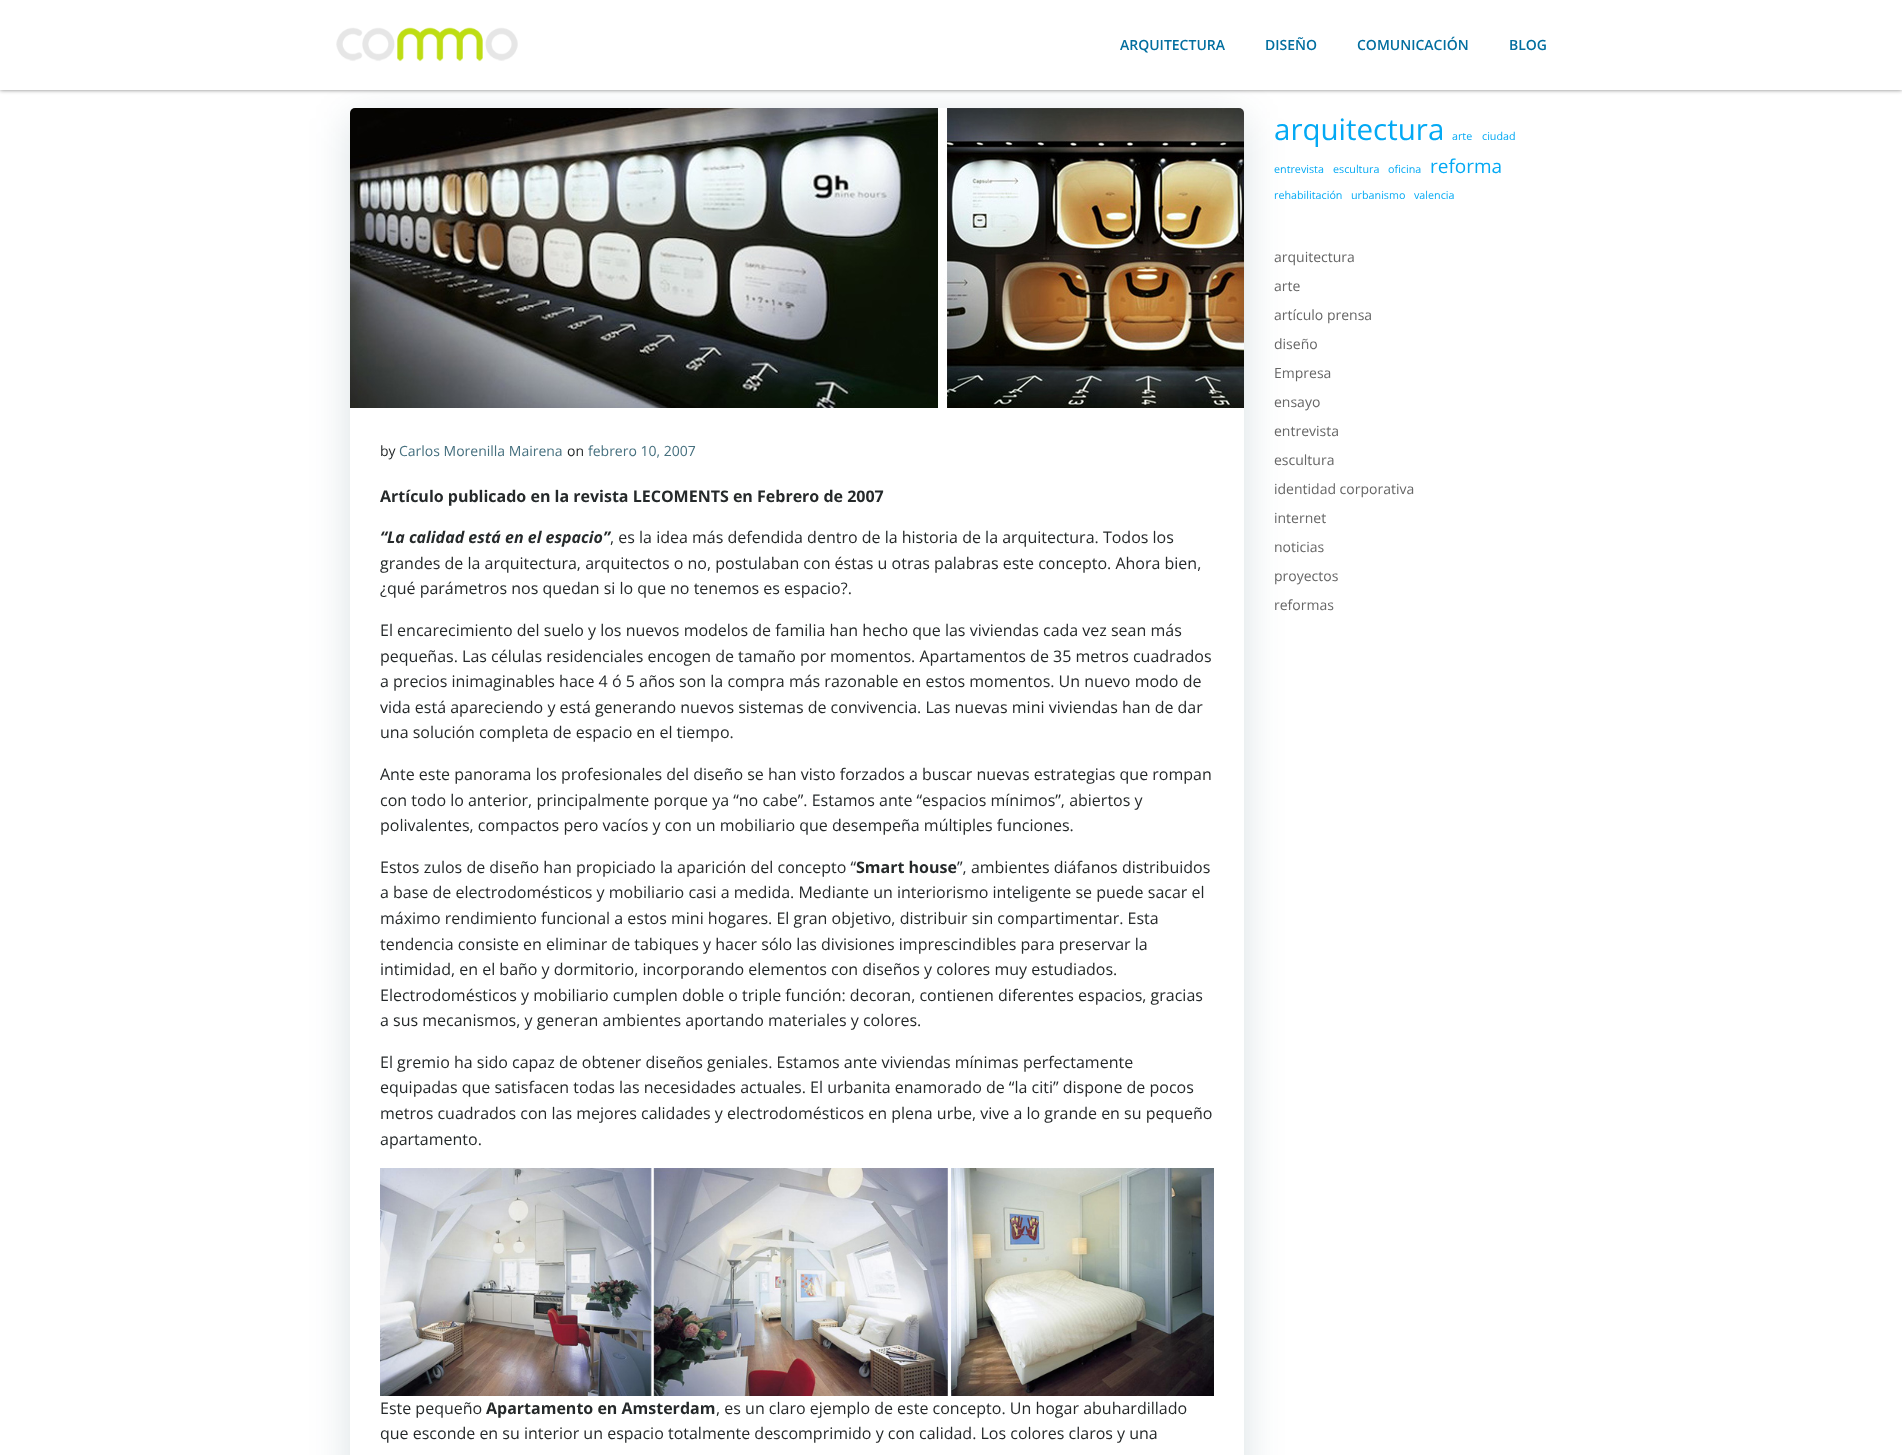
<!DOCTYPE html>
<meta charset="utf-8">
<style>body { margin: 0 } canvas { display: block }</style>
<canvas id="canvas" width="1902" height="1455"></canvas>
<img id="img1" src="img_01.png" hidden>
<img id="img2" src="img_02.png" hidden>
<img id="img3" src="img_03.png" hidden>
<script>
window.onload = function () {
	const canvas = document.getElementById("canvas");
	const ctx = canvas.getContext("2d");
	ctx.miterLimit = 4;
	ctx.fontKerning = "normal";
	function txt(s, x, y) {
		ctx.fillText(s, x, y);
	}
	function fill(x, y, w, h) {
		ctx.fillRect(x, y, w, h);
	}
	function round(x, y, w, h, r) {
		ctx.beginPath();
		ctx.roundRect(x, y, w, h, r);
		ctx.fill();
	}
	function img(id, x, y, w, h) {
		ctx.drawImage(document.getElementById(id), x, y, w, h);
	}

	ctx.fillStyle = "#FFFFFF";
	fill(0, 0, 1902, 1455);
	ctx.fillStyle = "rgba(0, 0, 0, 0.5)";
	ctx.filter = "blur(2px)";
	ctx.beginPath();
	ctx.rect(0, 0, 1902, 90);
	ctx.fill();
	ctx.filter = "none";
	ctx.fillStyle = "rgba(1, 51, 74, 0.15)";
	ctx.filter = "blur(20px)";
	ctx.beginPath();
	ctx.roundRect(350, 118, 894, 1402, 5);
	ctx.fill();
	ctx.filter = "none";
	ctx.fillStyle = "#FFFFFF";
	fill(0, 0, 1902, 90);
	img("img1", 336, 27, 182, 35);
	round(350, 108, 894, 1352, 5);
	img("img2", 350, 108, 894, 300);
	img("img3", 380, 1168, 834, 228);
	ctx.font = "600 14px Open Sans";
	ctx.fillStyle = "#026E9F";
	txt("ARQUITECTURA", 1120, 50);
	txt("DISEÑO", 1265, 50);
	txt("COMUNICACIÓN", 1357, 50);
	txt("BLOG", 1509, 50);
	ctx.font = "29.5px Open Sans";
	ctx.fillStyle = "#03A9F4";
	txt("arquitectura", 1274, 140);
	ctx.font = "10.75px Open Sans";
	txt("arte", 1452, 140);
	txt("ciudad", 1482, 140);
	txt("entrevista", 1274, 173);
	txt("escultura", 1333, 173);
	txt("oficina", 1388, 173);
	ctx.font = "19px Open Sans";
	txt("reforma", 1430, 173);
	ctx.font = "10.75px Open Sans";
	txt("rehabilitación", 1274, 199);
	txt("urbanismo", 1351, 199);
	txt("valencia", 1414, 199);
	ctx.font = "14px Open Sans";
	ctx.fillStyle = "#666666";
	txt("arquitectura", 1274, 262);
	txt("arte", 1274, 291);
	txt("artículo prensa", 1274, 320);
	txt("diseño", 1274, 349);
	txt("Empresa", 1274, 378);
	txt("ensayo", 1274, 407);
	txt("entrevista", 1274, 436);
	txt("escultura", 1274, 465);
	txt("identidad corporativa", 1274, 494);
	txt("internet", 1274, 523);
	txt("noticias", 1274, 552);
	txt("proyectos", 1274, 581);
	txt("reformas", 1274, 610);
	ctx.fillStyle = "#25292A";
	txt("by", 380, 456);
	ctx.fillStyle = "#46707F";
	txt("Carlos Morenilla Mairena", 399, 456);
	ctx.fillStyle = "#25292A";
	txt("on", 567, 456);
	ctx.fillStyle = "#46707F";
	txt("febrero 10, 2007", 588, 456);
	ctx.font = "bold 16px Open Sans";
	ctx.fillStyle = "#25292A";
	txt("Artículo publicado en la revista LECOMENTS en Febrero de 2007", 380, 502);
	ctx.font = "italic bold 16px Open Sans";
	txt("“La calidad está en el espacio”", 380, 543);
	ctx.font = "16px Open Sans";
	txt(", es la idea más defendida dentro de la historia de la arquitectura. Todos los", 610, 543);
	txt("grandes de la arquitectura, arquitectos o no, postulaban con éstas u otras palabras este concepto. Ahora bien,", 380, 569);
	txt("¿qué parámetros nos quedan si lo que no tenemos es espacio?.", 380, 594);
	txt("El encarecimiento del suelo y los nuevos modelos de familia han hecho que las viviendas cada vez sean más", 380, 636);
	txt("pequeñas. Las células residenciales encogen de tamaño por momentos. Apartamentos de 35 metros cuadrados", 380, 662);
	txt("a precios inimaginables hace 4 ó 5 años son la compra más razonable en estos momentos. Un nuevo modo de", 380, 687);
	txt("vida está apareciendo y está generando nuevos sistemas de convivencia. Las nuevas mini viviendas han de dar", 380, 713);
	txt("una solución completa de espacio en el tiempo.", 380, 738);
	txt("Ante este panorama los profesionales del diseño se han visto forzados a buscar nuevas estrategias que rompan", 380, 780);
	txt("con todo lo anterior, principalmente porque ya “no cabe”. Estamos ante “espacios mínimos”, abiertos y", 380, 806);
	txt("polivalentes, compactos pero vacíos y con un mobiliario que desempeña múltiples funciones.", 380, 831);
	txt("Estos zulos de diseño han propiciado la aparición del concepto “", 380, 873);
	ctx.font = "bold 16px Open Sans";
	txt("Smart house", 856, 873);
	ctx.font = "16px Open Sans";
	txt("”, ambientes diáfanos distribuidos", 957, 873);
	txt("a base de electrodomésticos y mobiliario casi a medida. Mediante un interiorismo inteligente se puede sacar el", 380, 898);
	txt("máximo rendimiento funcional a estos mini hogares. El gran objetivo, distribuir sin compartimentar. Esta", 380, 924);
	txt("tendencia consiste en eliminar de tabiques y hacer sólo las divisiones imprescindibles para preservar la", 380, 950);
	txt("intimidad, en el baño y dormitorio, incorporando elementos con diseños y colores muy estudiados.", 380, 975);
	txt("Electrodomésticos y mobiliario cumplen doble o triple función: decoran, contienen diferentes espacios, gracias", 380, 1001);
	txt("a sus mecanismos, y generan ambientes aportando materiales y colores.", 380, 1026);
	txt("El gremio ha sido capaz de obtener diseños geniales. Estamos ante viviendas mínimas perfectamente", 380, 1068);
	txt("equipadas que satisfacen todas las necesidades actuales. El urbanita enamorado de “la citi” dispone de pocos", 380, 1093);
	txt("metros cuadrados con las mejores calidades y electrodomésticos en plena urbe, vive a lo grande en su pequeño", 380, 1119);
	txt("apartamento.", 380, 1145);
	txt("Este pequeño", 380, 1414);
	ctx.font = "bold 16px Open Sans";
	txt("Apartamento en Amsterdam", 486, 1414);
	ctx.font = "16px Open Sans";
	txt(", es un claro ejemplo de este concepto. Un hogar abuhardillado", 716, 1414);
	txt("que esconde en su interior un espacio totalmente descomprimido y con calidad. Los colores claros y una", 380, 1439);
};
</script>
